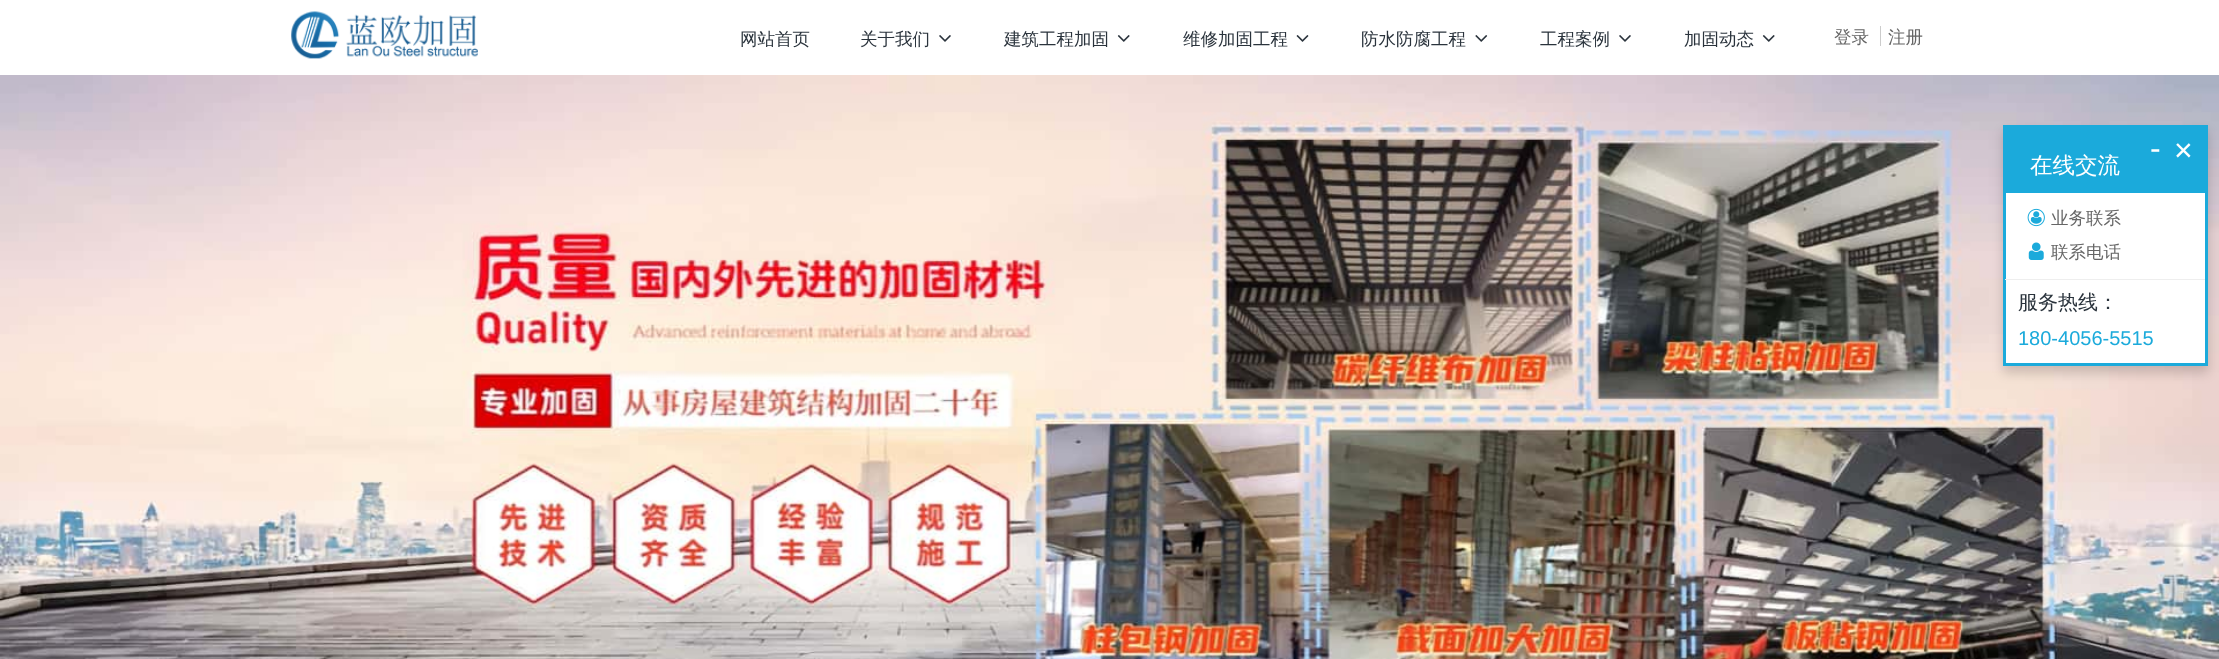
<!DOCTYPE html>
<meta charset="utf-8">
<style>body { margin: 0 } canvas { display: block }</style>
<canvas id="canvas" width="2219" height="659"></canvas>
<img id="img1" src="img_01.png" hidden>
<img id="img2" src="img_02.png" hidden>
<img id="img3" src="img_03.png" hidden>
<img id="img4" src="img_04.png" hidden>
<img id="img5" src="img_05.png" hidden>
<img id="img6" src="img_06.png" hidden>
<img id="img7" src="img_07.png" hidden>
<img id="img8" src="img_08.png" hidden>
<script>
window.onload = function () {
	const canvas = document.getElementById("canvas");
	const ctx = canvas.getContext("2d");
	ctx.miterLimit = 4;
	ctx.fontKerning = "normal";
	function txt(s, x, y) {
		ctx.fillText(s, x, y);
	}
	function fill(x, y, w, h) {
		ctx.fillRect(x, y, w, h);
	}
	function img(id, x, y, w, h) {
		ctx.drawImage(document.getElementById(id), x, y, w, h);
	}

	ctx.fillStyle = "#FFFFFF";
	fill(0, 0, 2219, 659);
	img("img1", 291, 11, 187, 48);
	img("img2", 939, 35, 12, 7);
	img("img3", 1117, 35, 13, 7);
	img("img4", 1296, 35, 13, 7);
	img("img5", 1475, 35, 13, 7);
	img("img2", 1619, 35, 12, 7);
	img("img3", 1762, 35, 13, 7);
	ctx.fillStyle = "#CCCCCC";
	fill(1880, 26, 1, 20);
	img("img6", 0, 75, 2219, 584);
	ctx.fillStyle = "rgba(4, 0, 0, 0.17)";
	ctx.filter = "blur(5.5px)";
	ctx.beginPath();
	ctx.rect(2003, 131, 205, 242);
	ctx.fill();
	ctx.filter = "none";
	ctx.fillStyle = "#FFFFFF";
	fill(2006, 193, 199, 170);
	ctx.strokeStyle = "#1BAADB";
	ctx.lineWidth = 3;
	ctx.strokeRect(2004.5, 126.5, 202, 238);
	ctx.fillStyle = "#1BAADB";
	fill(2006, 128, 199, 65);
	img("img7", 2027, 208, 18, 19);
	img("img8", 2028, 242, 16, 18);
	ctx.fillStyle = "#EEEEEE";
	fill(2005, 279, 200, 1);
	ctx.font = "500 17.5px WenQuanYi Zen Hei";
	ctx.fillStyle = "#2A333C";
	txt("网站首页", 740, 45);
	txt("关于我们", 860, 45);
	txt("建筑工程加固", 1004, 45);
	txt("维修加固工程", 1183, 45);
	txt("防水防腐工程", 1361, 45);
	txt("工程案例", 1540, 45);
	txt("加固动态", 1684, 45);
	ctx.fillStyle = "#666666";
	txt("登录", 1834, 43);
	txt("注册", 1888, 43);
	ctx.font = "32px Liberation Sans";
	ctx.fillStyle = "#FFFFFF";
	txt("-", 2150, 159);
	txt("×", 2174, 161);
	ctx.font = "500 22.5px WenQuanYi Zen Hei";
	txt("在线交流", 2030, 173);
	ctx.font = "500 17.5px WenQuanYi Zen Hei";
	ctx.fillStyle = "#666666";
	txt("业务联系", 2051, 224);
	txt("联系电话", 2051, 258);
	ctx.font = "500 20px WenQuanYi Zen Hei";
	ctx.fillStyle = "#2A333C";
	txt("服务热线：", 2018, 309);
	ctx.font = "20px Liberation Sans";
	ctx.fillStyle = "#1BAADB";
	txt("180-4056-5515", 2018, 345);
};
</script>
